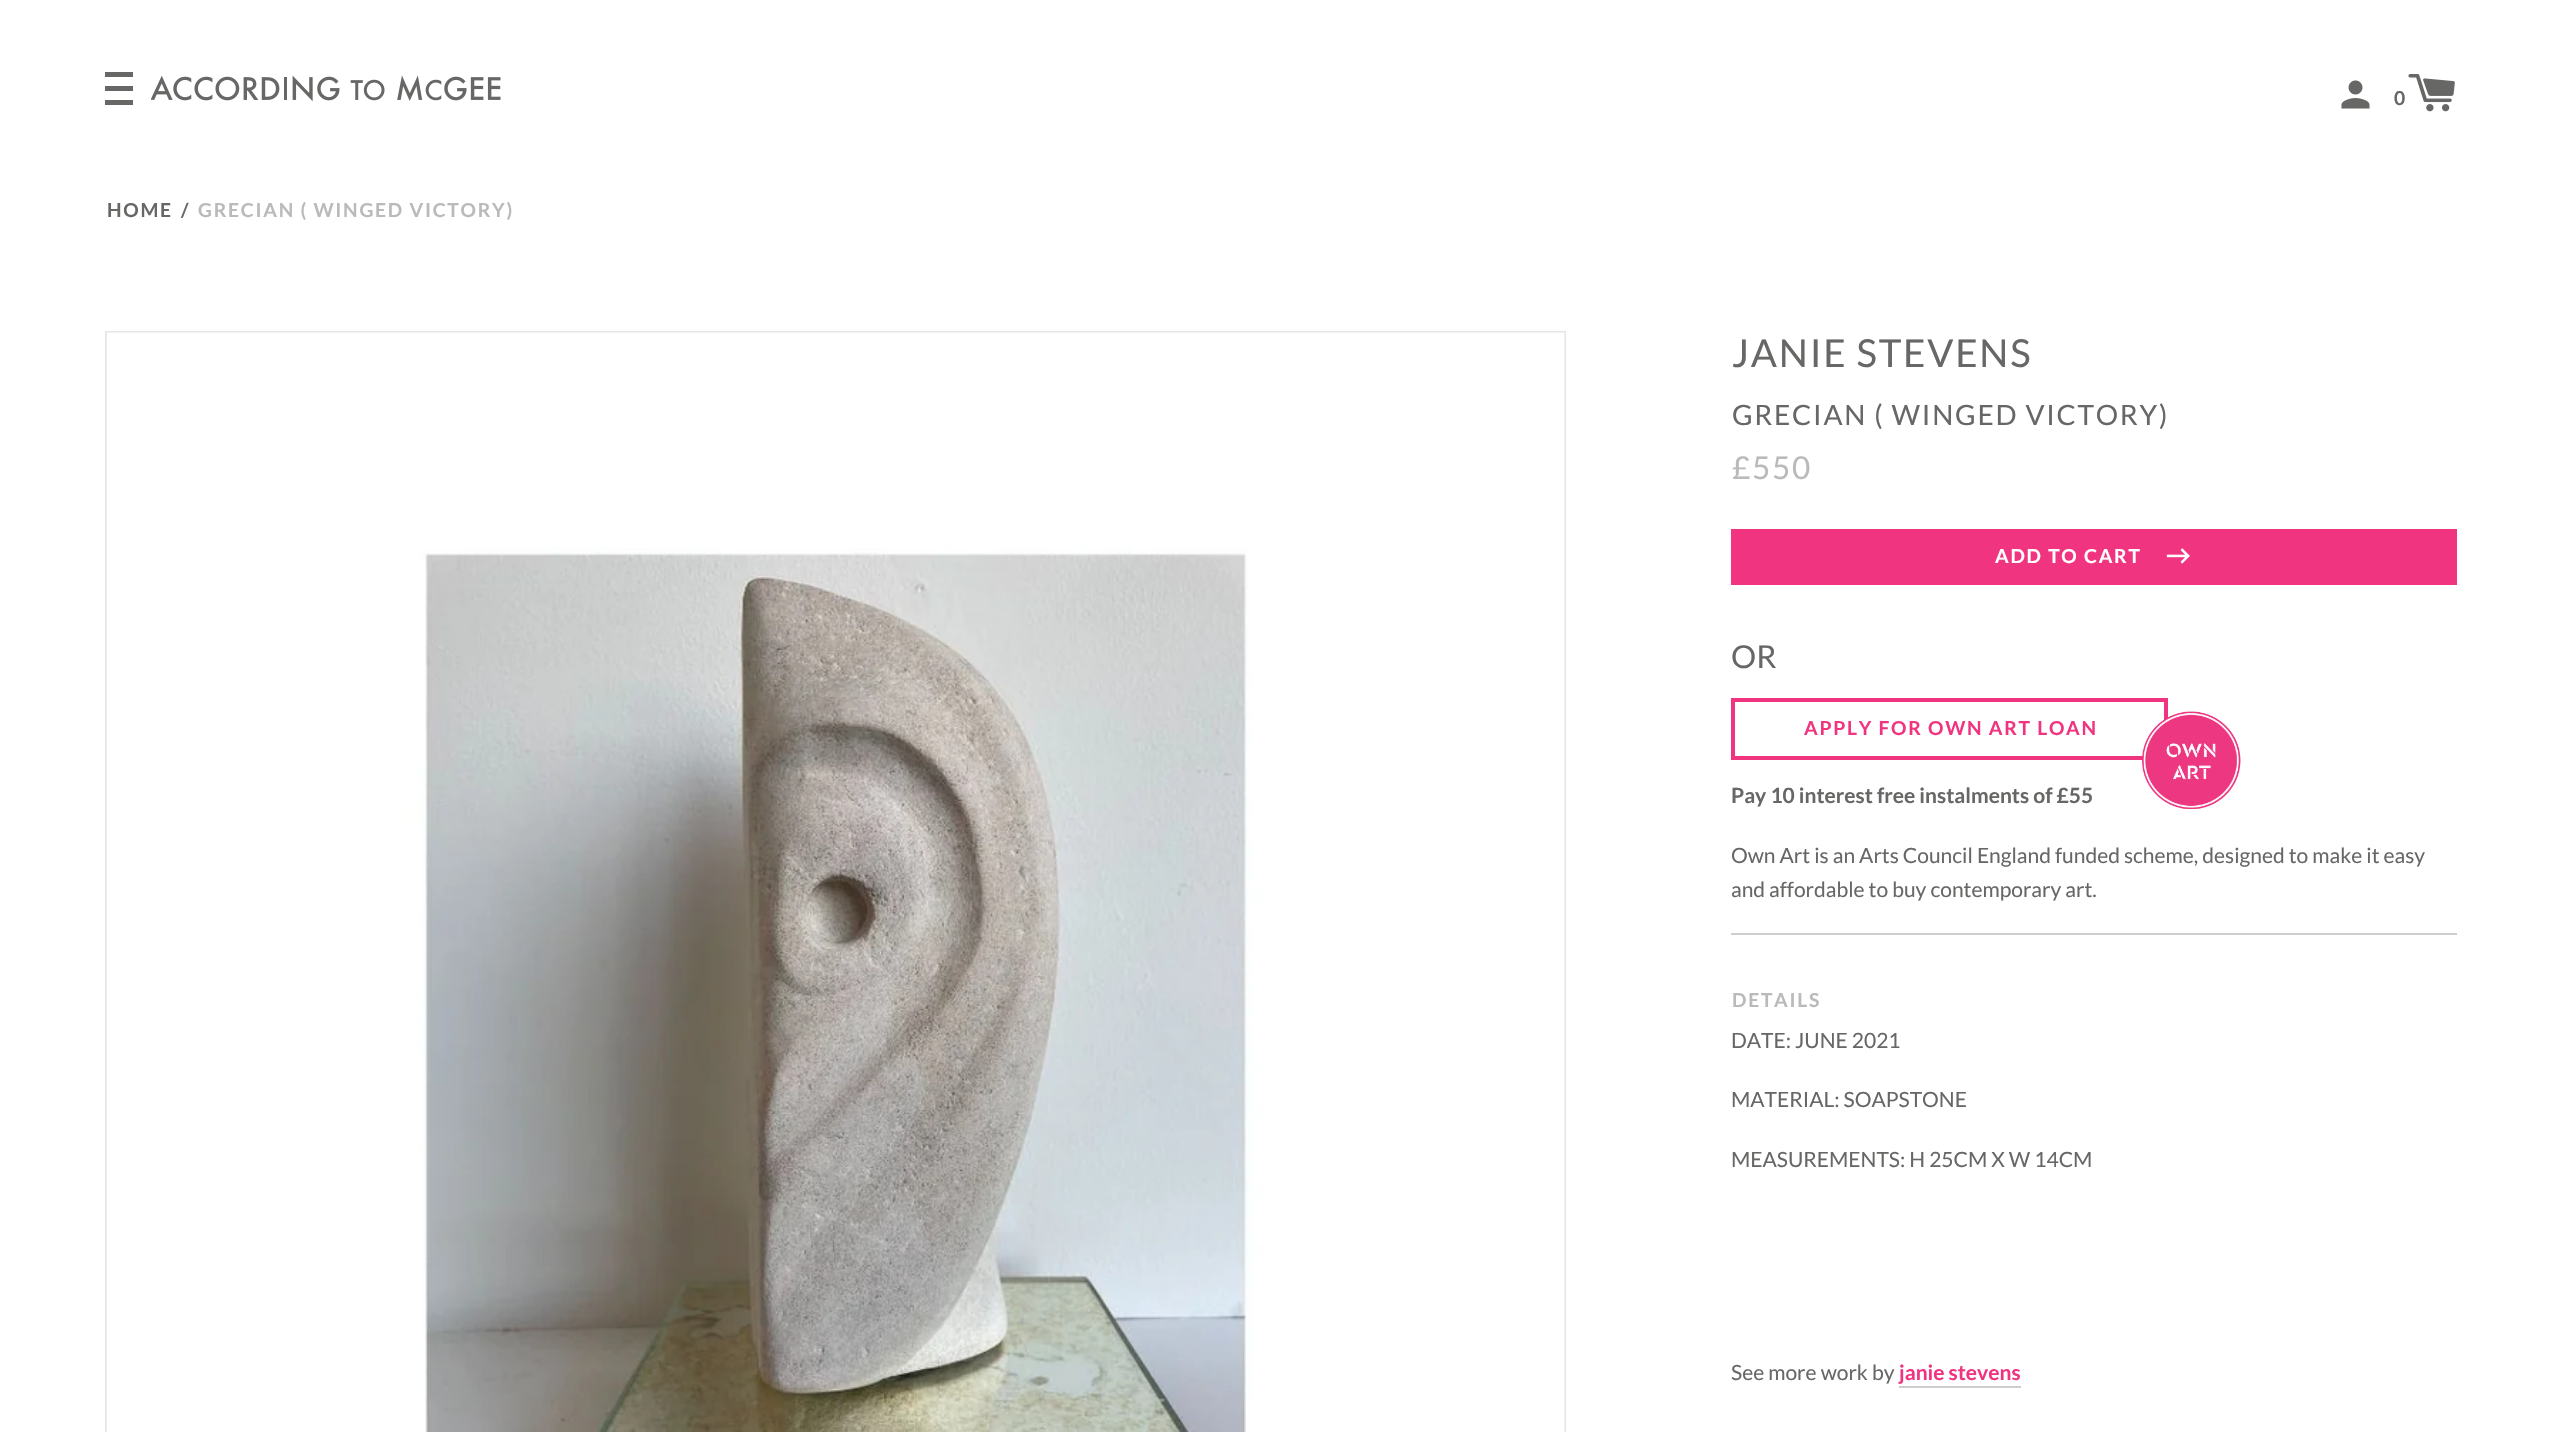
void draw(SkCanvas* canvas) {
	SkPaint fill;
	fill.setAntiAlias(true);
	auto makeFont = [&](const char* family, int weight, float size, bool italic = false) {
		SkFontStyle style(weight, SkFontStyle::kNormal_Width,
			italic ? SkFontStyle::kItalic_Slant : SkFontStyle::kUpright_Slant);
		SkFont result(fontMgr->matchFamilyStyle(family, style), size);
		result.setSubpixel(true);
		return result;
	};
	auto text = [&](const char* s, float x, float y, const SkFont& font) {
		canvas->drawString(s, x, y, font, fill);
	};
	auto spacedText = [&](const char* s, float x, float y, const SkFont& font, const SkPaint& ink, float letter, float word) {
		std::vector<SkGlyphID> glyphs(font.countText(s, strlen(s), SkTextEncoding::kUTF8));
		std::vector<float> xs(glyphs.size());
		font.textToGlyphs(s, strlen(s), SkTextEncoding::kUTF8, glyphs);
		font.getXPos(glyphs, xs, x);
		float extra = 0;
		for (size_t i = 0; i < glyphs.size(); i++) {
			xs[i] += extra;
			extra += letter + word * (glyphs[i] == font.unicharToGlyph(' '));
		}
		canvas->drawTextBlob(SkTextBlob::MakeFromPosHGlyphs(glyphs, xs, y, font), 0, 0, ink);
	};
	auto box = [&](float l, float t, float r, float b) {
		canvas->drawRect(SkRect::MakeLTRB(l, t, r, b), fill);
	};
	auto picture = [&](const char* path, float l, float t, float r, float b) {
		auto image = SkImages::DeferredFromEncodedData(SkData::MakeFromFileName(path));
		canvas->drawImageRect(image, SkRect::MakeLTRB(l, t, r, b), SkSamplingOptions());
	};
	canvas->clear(0xFFFFFFFF);
	fill.setColor(0xFF676766);
	box(105, 72, 133, 77);
	box(105, 86, 133, 91);
	box(105, 100, 133, 105);
	picture("image0.png", 151, 75, 501, 102);
	picture("image1.png", 2341, 80, 2370, 109);
	picture("image2.png", 2408, 74, 2455, 112);
	fill.setStyle(SkPaint::kStroke_Style);
	fill.setStrokeWidth(2);
	fill.setColor(0xFFE6E6E6);
	canvas->drawRect(SkRect::MakeLTRB(106, 332, 1565, 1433), fill);
	picture("image3.png", 106, 332, 1565, 1432);
	fill.setStyle(SkPaint::kFill_Style);
	fill.setColor(0xFFF13480);
	box(1731, 529, 2457, 585);
	picture("image4.png", 2166, 548, 2190, 564);
	fill.setStyle(SkPaint::kStroke_Style);
	fill.setStrokeWidth(4);
	canvas->drawRect(SkRect::MakeLTRB(1733, 700, 2166, 758), fill);
	picture("image5.png", 2142, 711, 2241, 809);
	fill.setStyle(SkPaint::kFill_Style);
	fill.setColor(0xFFCECECE);
	box(1731, 933, 2457, 935);
	box(1899, 1386, 2021, 1388);
	auto font1 = makeFont("Lato", 700, 19.25f);
	fill.setColor(0xFF676766);
	text("0", 2394, 105, font1);
	spacedText("HOME", 107, 217, font1, fill, 1.75f, 0);
	spacedText("/", 181, 217, font1, fill, 1.75f, 0);
	fill.setColor(0xFFBABABA);
	spacedText("GRECIAN ( WINGED VICTORY)", 198, 217, font1, fill, 1.75f, 0);
	auto font2 = makeFont("Lato", 400, 38.5f);
	fill.setColor(0xFF676766);
	spacedText("JANIE STEVENS", 1732, 367, font2, fill, 1.75f, 0);
	auto font3 = makeFont("Lato", 400, 28);
	spacedText("GRECIAN ( WINGED VICTORY)", 1732, 425, font3, fill, 1.75f, 0);
	auto font4 = makeFont("Lato", 400, 31.5f);
	fill.setColor(0xFFBABABA);
	spacedText("£550", 1732, 479, font4, fill, 1.75f, 0);
	fill.setColor(0xFFFFFFFF);
	spacedText("ADD TO CART", 1995, 563, font1, fill, 1.75f, 0);
	fill.setColor(0xFF676766);
	text("OR", 1731, 668, font4);
	fill.setColor(0xFFF13480);
	spacedText("APPLY FOR OWN ART LOAN", 1804, 735, font1, fill, 1.75f, 0);
	auto font5 = makeFont("Lato", 700, 21);
	fill.setColor(0xFF676766);
	text("Pay 10 interest free instalments of £55", 1731, 803, font5);
	auto font6 = makeFont("Lato", 400, 21);
	text("Own Art is an Arts Council England funded scheme, designed to make it easy", 1731, 863, font6);
	text("and affordable to buy contemporary art.", 1731, 897, font6);
	fill.setColor(0xFFBABABA);
	spacedText("DETAILS", 1732, 1007, font1, fill, 1.75f, 0);
	fill.setColor(0xFF676766);
	text("DATE: JUNE 2021", 1731, 1048, font6);
	text("MATERIAL: SOAPSTONE", 1731, 1107, font6);
	text("MEASUREMENTS: H 25CM X W 14CM", 1731, 1167, font6);
	text("See more work by", 1731, 1380, font6);
	fill.setColor(0xFFF13480);
	text("janie stevens", 1899, 1380, font5);
}
